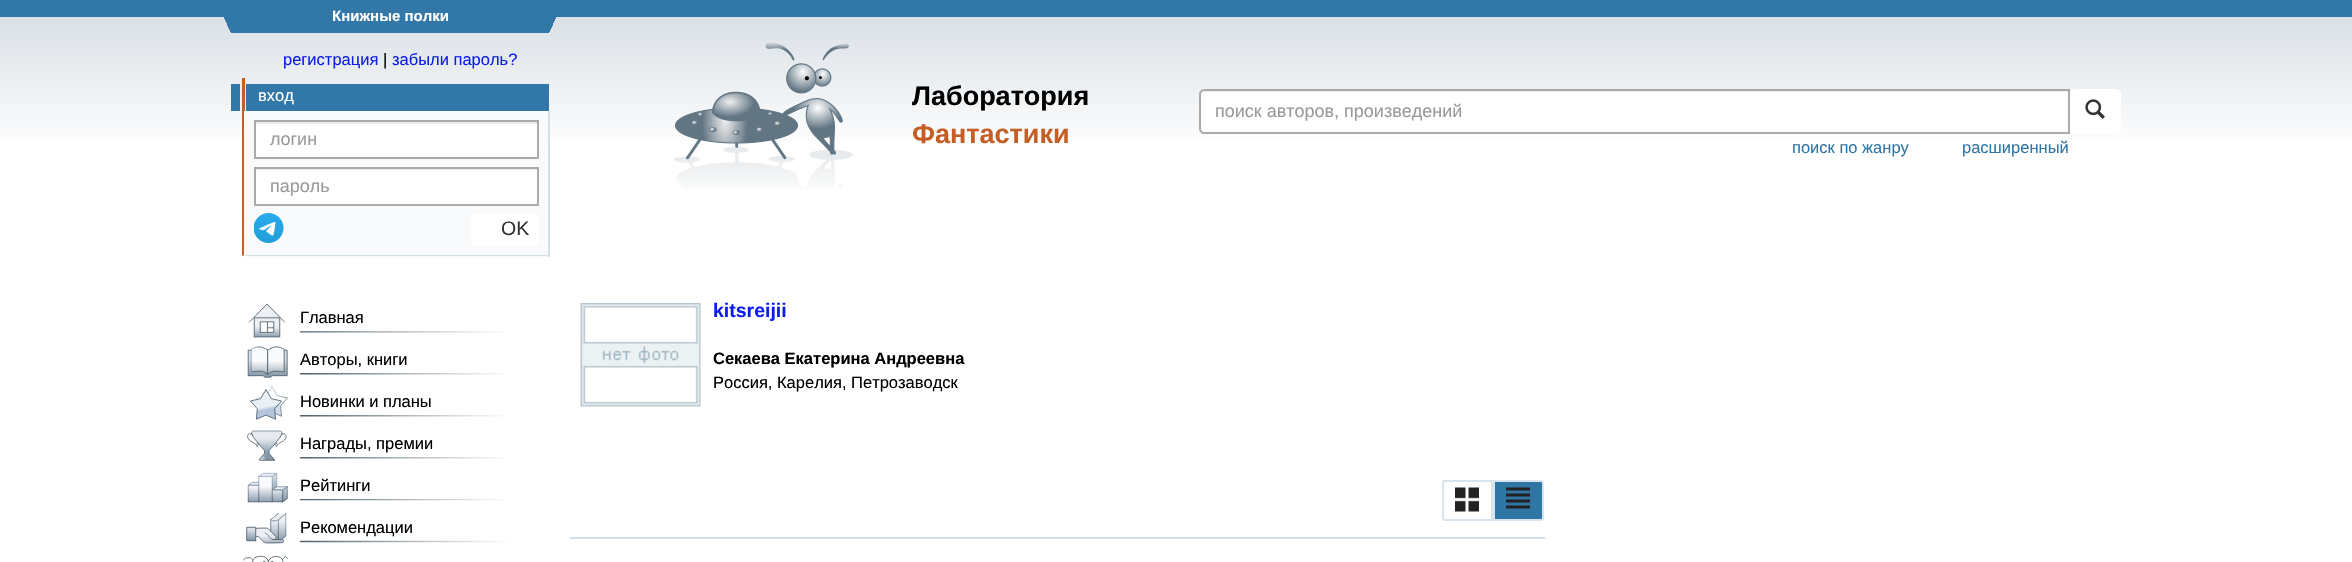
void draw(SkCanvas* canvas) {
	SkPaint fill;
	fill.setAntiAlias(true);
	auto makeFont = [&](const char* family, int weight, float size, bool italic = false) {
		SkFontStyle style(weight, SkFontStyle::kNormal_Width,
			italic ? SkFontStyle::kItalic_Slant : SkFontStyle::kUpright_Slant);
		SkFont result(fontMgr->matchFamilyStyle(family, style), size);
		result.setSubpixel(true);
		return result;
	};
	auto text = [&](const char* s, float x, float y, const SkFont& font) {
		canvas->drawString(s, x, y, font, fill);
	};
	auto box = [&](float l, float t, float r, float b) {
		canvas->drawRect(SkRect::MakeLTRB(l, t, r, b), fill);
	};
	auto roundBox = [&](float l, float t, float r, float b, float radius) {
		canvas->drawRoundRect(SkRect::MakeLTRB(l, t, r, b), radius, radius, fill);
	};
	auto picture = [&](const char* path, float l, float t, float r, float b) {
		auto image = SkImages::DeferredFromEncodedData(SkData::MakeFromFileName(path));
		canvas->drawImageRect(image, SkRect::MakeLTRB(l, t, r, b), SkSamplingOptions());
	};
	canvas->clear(0xFFFFFFFF);
	{
		const SkColor colors[] = {0xFFD6DDE3, 0xFFFFFFFF};
		const float stops[] = {0, 0.07f};
		const SkPoint ends[] = {{1176, 0}, {1176, 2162}};
		fill.setShader(SkGradientShader::MakeLinear(ends, colors, stops, 2, SkTileMode::kClamp));
		fill.setAlpha(255);
	}
	box(0, 17, 2352, 142);
	fill.setShader(nullptr);
	fill.setColor(0xFF3177A8);
	box(0, 0, 2352, 17);
	{
		const SkColor colors[] = {0x00000000, 0x003177A8, 0xFF3177A8, 0xFF3177A8};
		const float stops[] = {0, 0.5f, 0.5f, 1};
		const SkPoint ends[] = {{211, 22}, {236, 11}};
		fill.setShader(SkGradientShader::MakeLinear(ends, colors, stops, 4, SkTileMode::kClamp));
		fill.setAlpha(255);
	}
	box(224, 17, 231, 32);
	fill.setShader(nullptr);
	fill.setColor(0xFF3178A8);
	box(231, 17, 549, 33);
	{
		const SkColor colors[] = {0x00000000, 0x003177A8, 0xFF3177A8, 0xFF3177A8};
		const float stops[] = {0, 0.5f, 0.5f, 1};
		const SkPoint ends[] = {{569, 22}, {544, 11}};
		fill.setShader(SkGradientShader::MakeLinear(ends, colors, stops, 4, SkTileMode::kClamp));
		fill.setAlpha(255);
	}
	box(549, 17, 556, 32);
	fill.setShader(nullptr);
	fill.setColor(0xFF3178A8);
	box(231, 84, 240, 111);
	fill.setColor(0xFFC45E24);
	box(242, 78, 245, 111);
	fill.setColor(0xFF3178A8);
	box(246, 84, 549, 111);
	fill.setColor(0xFFF9FAFB);
	box(242, 111, 548, 257);
	fill.setColor(0xFFD2E0E8);
	box(548, 111, 550, 257);
	canvas->drawPath(SkPathBuilder().moveTo(549, 256).lineTo(242, 256).lineTo(244, 255).lineTo(548, 255).close().detach(), fill);
	fill.setColor(0xFFC45E24);
	canvas->drawPath(SkPathBuilder().moveTo(242, 256).lineTo(242, 111).lineTo(244, 111).lineTo(244, 255).close().detach(), fill);
	fill.setColor(0xFFFFFFFF);
	box(256, 124, 537, 157);
	fill.setColor(0xFFECECEC);
	box(255, 122, 537, 124);
	fill.setStyle(SkPaint::kStroke_Style);
	fill.setStrokeWidth(2);
	fill.setColor(0xFFAAAAAA);
	canvas->drawRect(SkRect::MakeLTRB(255, 121, 538, 158), fill);
	fill.setStyle(SkPaint::kFill_Style);
	fill.setColor(0xFFFFFFFF);
	box(256, 170, 537, 204);
	fill.setColor(0xFFECECEC);
	box(255, 169, 537, 170);
	fill.setStyle(SkPaint::kStroke_Style);
	fill.setColor(0xFFAAAAAA);
	canvas->drawRect(SkRect::MakeLTRB(255, 168, 538, 205), fill);
	picture("image0.png", 254, 213, 284, 243);
	fill.setStyle(SkPaint::kFill_Style);
	fill.setColor(0xFFFFFFFF);
	roundBox(471, 213, 539, 246, 5);
	picture("image1.png", 674, 42, 853, 190);
	roundBox(2069, 89, 2121, 134, 5);
	canvas->drawPath(SkPathBuilder().moveTo(1204, 89).lineTo(2070, 89).lineTo(2070, 134).lineTo(1204, 134).cubicTo(1201, 134, 1199, 132, 1199, 129).lineTo(1199, 94).cubicTo(1199, 91, 1201, 89, 1204, 89).close().detach(), fill);
	fill.setColor(0xFFECECEC);
	canvas->drawPath(SkPathBuilder().moveTo(1203, 92).lineTo(2068, 92).lineTo(2068, 132).lineTo(2069, 132).lineTo(2069, 90).lineTo(1203, 90).cubicTo(1201, 90, 1200, 92, 1200, 94).cubicTo(1200, 93, 1201, 92, 1203, 92).close().detach(), fill);
	fill.setStyle(SkPaint::kStroke_Style);
	fill.setColor(0xFFAAAAAA);
	canvas->drawPath(SkPathBuilder().moveTo(1204, 90).lineTo(2069, 90).lineTo(2069, 133).lineTo(1204, 133).cubicTo(1202, 133, 1200, 131, 1200, 129).lineTo(1200, 94).cubicTo(1200, 92, 1202, 90, 1204, 90).close().detach(), fill);
	picture("image2.png", 2085, 99, 2105, 119);
	picture("image3.png", 248, 304, 507, 338);
	picture("image4.png", 247, 346, 508, 378);
	picture("image5.png", 250, 386, 508, 420);
	picture("image6.png", 247, 430, 508, 461);
	picture("image7.png", 247, 472, 508, 503);
	picture("image8.png", 246, 512, 508, 544);
	picture("image9.png", 243, 555, 288, 562);
	picture("image10.png", 580, 303, 701, 407);
	fill.setStyle(SkPaint::kFill_Style);
	fill.setColor(0xFFD2E0E8);
	box(570, 537, 1545, 539);
	fill.setStyle(SkPaint::kStroke_Style);
	fill.setColor(0xFFD8E4EE);
	canvas->drawPath(SkPathBuilder().moveTo(1445, 481).lineTo(1492, 481).lineTo(1492, 520).lineTo(1445, 520).cubicTo(1444, 520, 1443, 519, 1443, 518).lineTo(1443, 483).cubicTo(1443, 482, 1444, 481, 1445, 481).close().detach(), fill);
	picture("image11.png", 1455, 487, 1479, 512);
	fill.setStyle(SkPaint::kFill_Style);
	fill.setColor(0xFF3076A5);
	canvas->drawPath(SkPathBuilder().moveTo(1494, 481).lineTo(1541, 481).cubicTo(1542, 481, 1543, 482, 1543, 483).lineTo(1543, 518).cubicTo(1543, 519, 1542, 520, 1541, 520).lineTo(1494, 520).close().detach(), fill);
	fill.setStyle(SkPaint::kStroke_Style);
	fill.setColor(0xFFD8E4EE);
	canvas->drawPath(SkPathBuilder().moveTo(1494, 481).lineTo(1541, 481).cubicTo(1542, 481, 1543, 482, 1543, 483).lineTo(1543, 518).cubicTo(1543, 519, 1542, 520, 1541, 520).lineTo(1494, 520).close().detach(), fill);
	picture("image12.png", 1506, 487, 1530, 509);
	auto font1 = makeFont("Liberation Sans", 700, 15);
	fill.setStyle(SkPaint::kFill_Style);
	fill.setColor(0xFFFFFFFF);
	text("Книжные полки", 332, 21, font1);
	auto font2 = makeFont("Liberation Sans", 400, 16.5f);
	fill.setColor(0xFF0C1DE9);
	text("регистрация", 283, 65, font2);
	fill.setColor(0xFF000000);
	text("|", 383, 65, font2);
	fill.setColor(0xFF0C1DE9);
	text("забыли пароль?", 392, 65, font2);
	fill.setColor(0xFFFFFFFF);
	text("вход", 258, 101, font2);
	auto font3 = makeFont("Liberation Sans", 400, 18);
	fill.setColor(0xFF999999);
	text("логин", 270, 145, font3);
	text("пароль", 270, 192, font3);
	auto font4 = makeFont("Liberation Sans", 400, 19.5f);
	fill.setColor(0xFF333333);
	text("OK", 501, 235, font4);
	auto font5 = makeFont("Liberation Sans", 700, 27);
	fill.setColor(0xFF000000);
	text("Лаборатория", 912, 105, font5);
	fill.setColor(0xFFC45E24);
	text("Фантастики", 912, 143, font5);
	fill.setColor(0xFF999999);
	text("поиск авторов, произведений", 1215, 117, font3);
	fill.setColor(0xFF3076A5);
	text("поиск по жанру", 1792, 153, font2);
	text("расширенный", 1962, 153, font2);
	fill.setColor(0xFF000000);
	text("Главная", 300, 323, font2);
	text("Авторы, книги", 300, 365, font2);
	text("Новинки и планы", 300, 407, font2);
	text("Награды, премии", 300, 449, font2);
	text("Рейтинги", 300, 491, font2);
	text("Рекомендации", 300, 533, font2);
	auto font6 = makeFont("Liberation Sans", 700, 19.5f);
	fill.setColor(0xFF0C1DE9);
	text("kitsreijii", 713, 317, font6);
	auto font7 = makeFont("Liberation Sans", 700, 16.5f);
	fill.setColor(0xFF000000);
	text("Секаева Екатерина Андреевна", 713, 364, font7);
	text("Россия, Карелия, Петрозаводск", 713, 388, font2);
}
